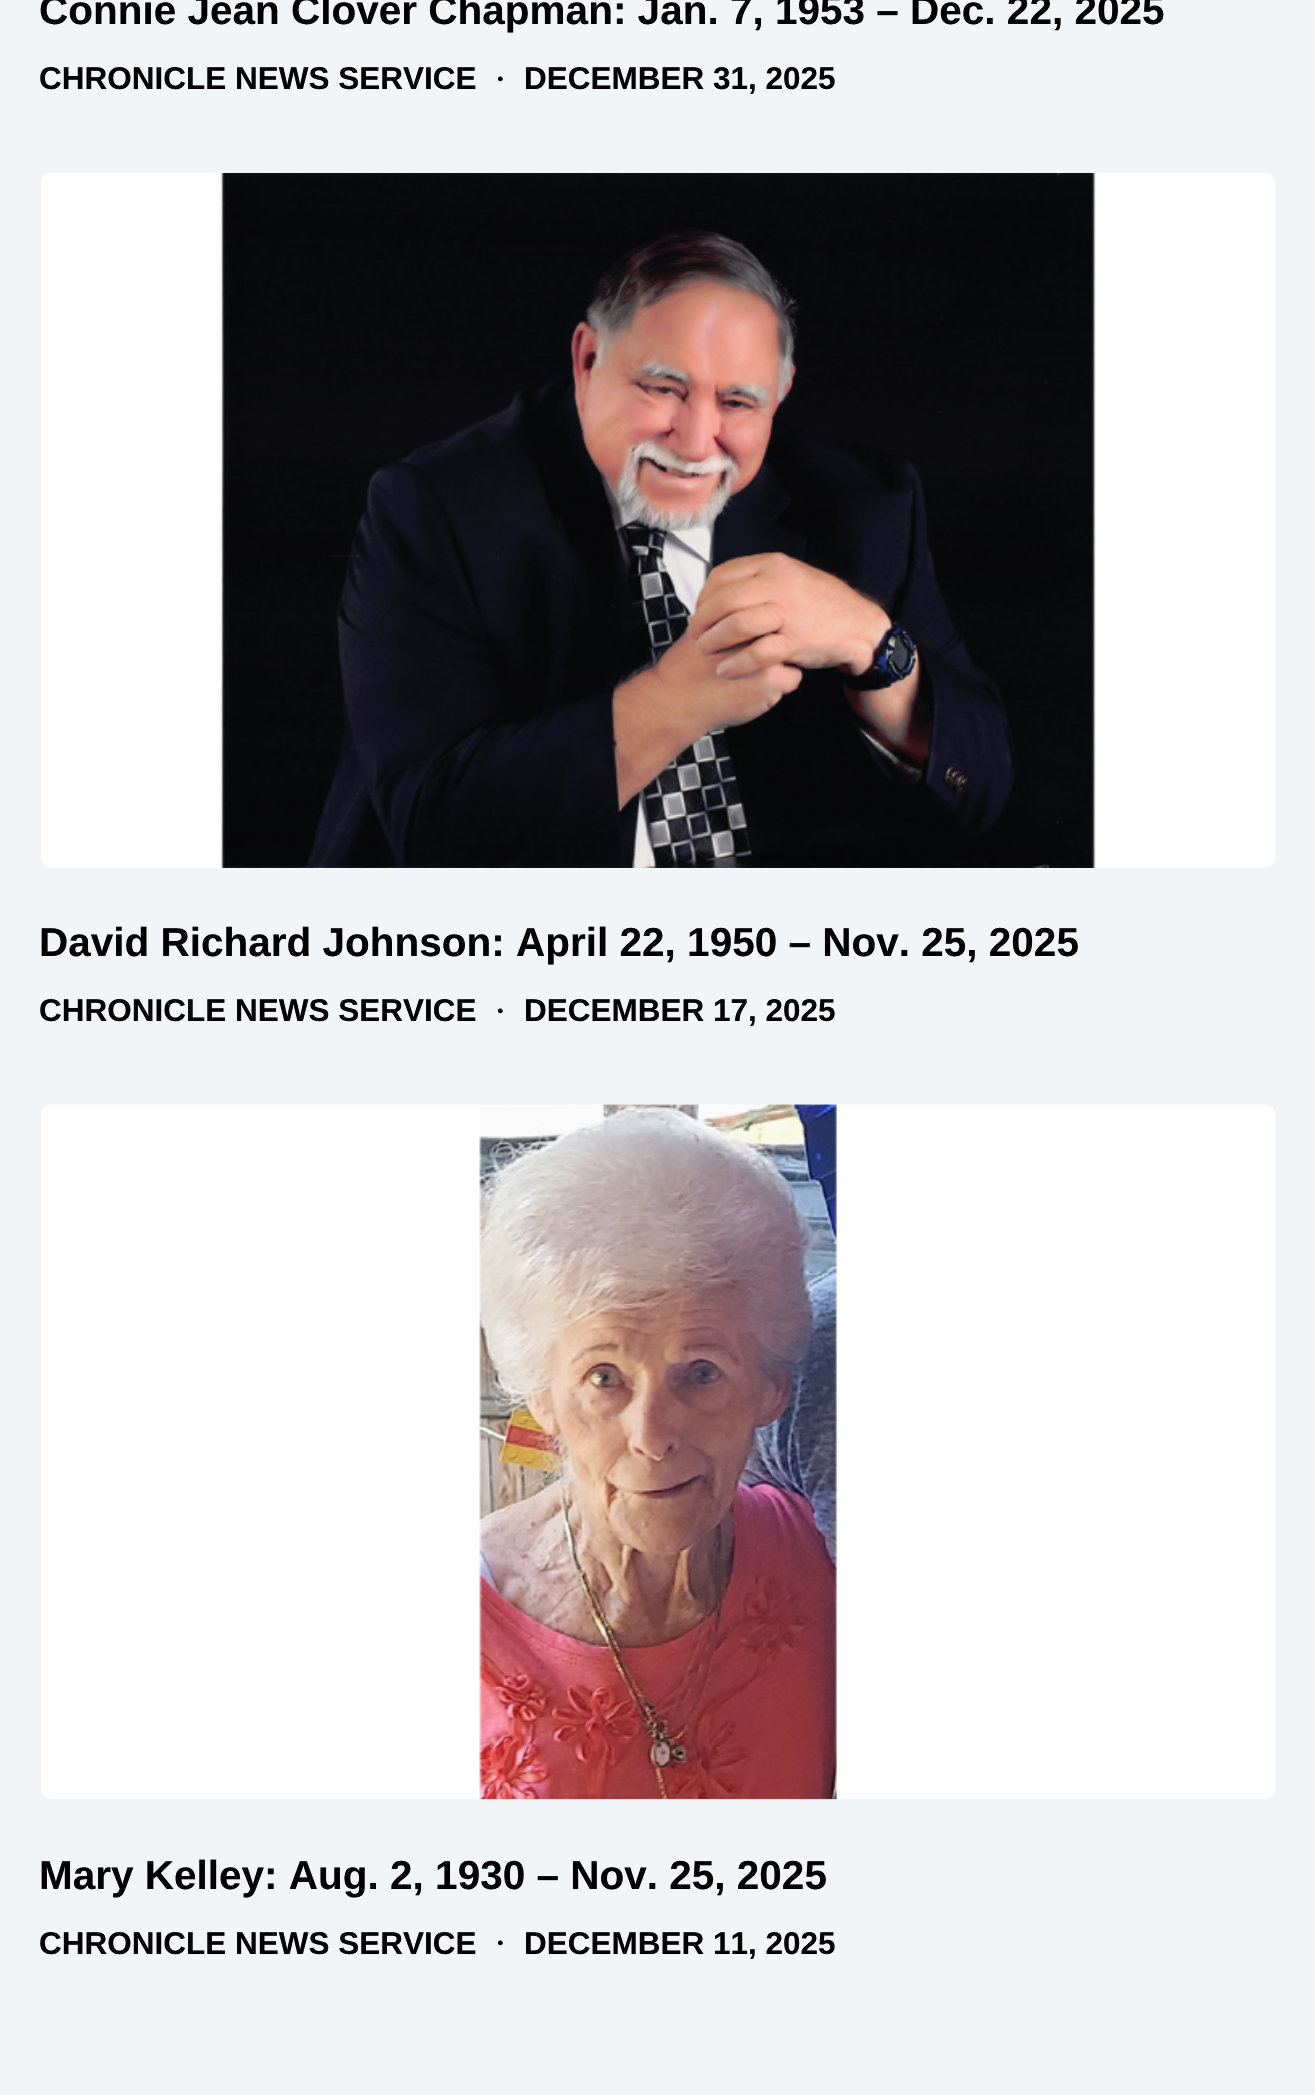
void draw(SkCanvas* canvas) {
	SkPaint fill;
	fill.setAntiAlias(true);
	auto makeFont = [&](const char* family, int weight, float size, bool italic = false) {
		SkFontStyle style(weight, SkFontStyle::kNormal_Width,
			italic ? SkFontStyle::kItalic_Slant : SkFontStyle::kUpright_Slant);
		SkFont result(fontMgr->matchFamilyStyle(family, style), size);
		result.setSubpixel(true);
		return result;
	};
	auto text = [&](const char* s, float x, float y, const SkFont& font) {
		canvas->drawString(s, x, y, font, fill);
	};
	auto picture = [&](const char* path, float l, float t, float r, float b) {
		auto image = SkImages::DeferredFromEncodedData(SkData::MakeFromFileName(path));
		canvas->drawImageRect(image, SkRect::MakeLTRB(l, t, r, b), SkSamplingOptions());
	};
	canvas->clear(0xFFF2F5F7);
	picture("image0.png", 41, 173, 1276, 868);
	picture("image1.png", 41, 1104, 1276, 1800);
	auto font1 = makeFont("Liberation Sans", 700, 40.5f);
	fill.setColor(0xFF000000);
	text("Connie Jean Clover Chapman: Jan. 7, 1953 – Dec. 22, 2025", 39, 24, font1);
	auto font2 = makeFont("Liberation Sans", 700, 31.5f);
	text("CHRONICLE NEWS SERVICE", 39, 89, font2);
	auto font3 = makeFont("Liberation Sans", 700, 11);
	text("●", 497, 82, font3);
	text("DECEMBER 31, 2025", 524, 89, font2);
	text("David Richard Johnson: April 22, 1950 – Nov. 25, 2025", 39, 956, font1);
	text("CHRONICLE NEWS SERVICE", 39, 1021, font2);
	text("●", 497, 1014, font3);
	text("DECEMBER 17, 2025", 524, 1021, font2);
	text("Mary Kelley: Aug. 2, 1930 – Nov. 25, 2025", 39, 1889, font1);
	text("CHRONICLE NEWS SERVICE", 39, 1954, font2);
	text("●", 497, 1946, font3);
	text("DECEMBER 11, 2025", 524, 1954, font2);
}
